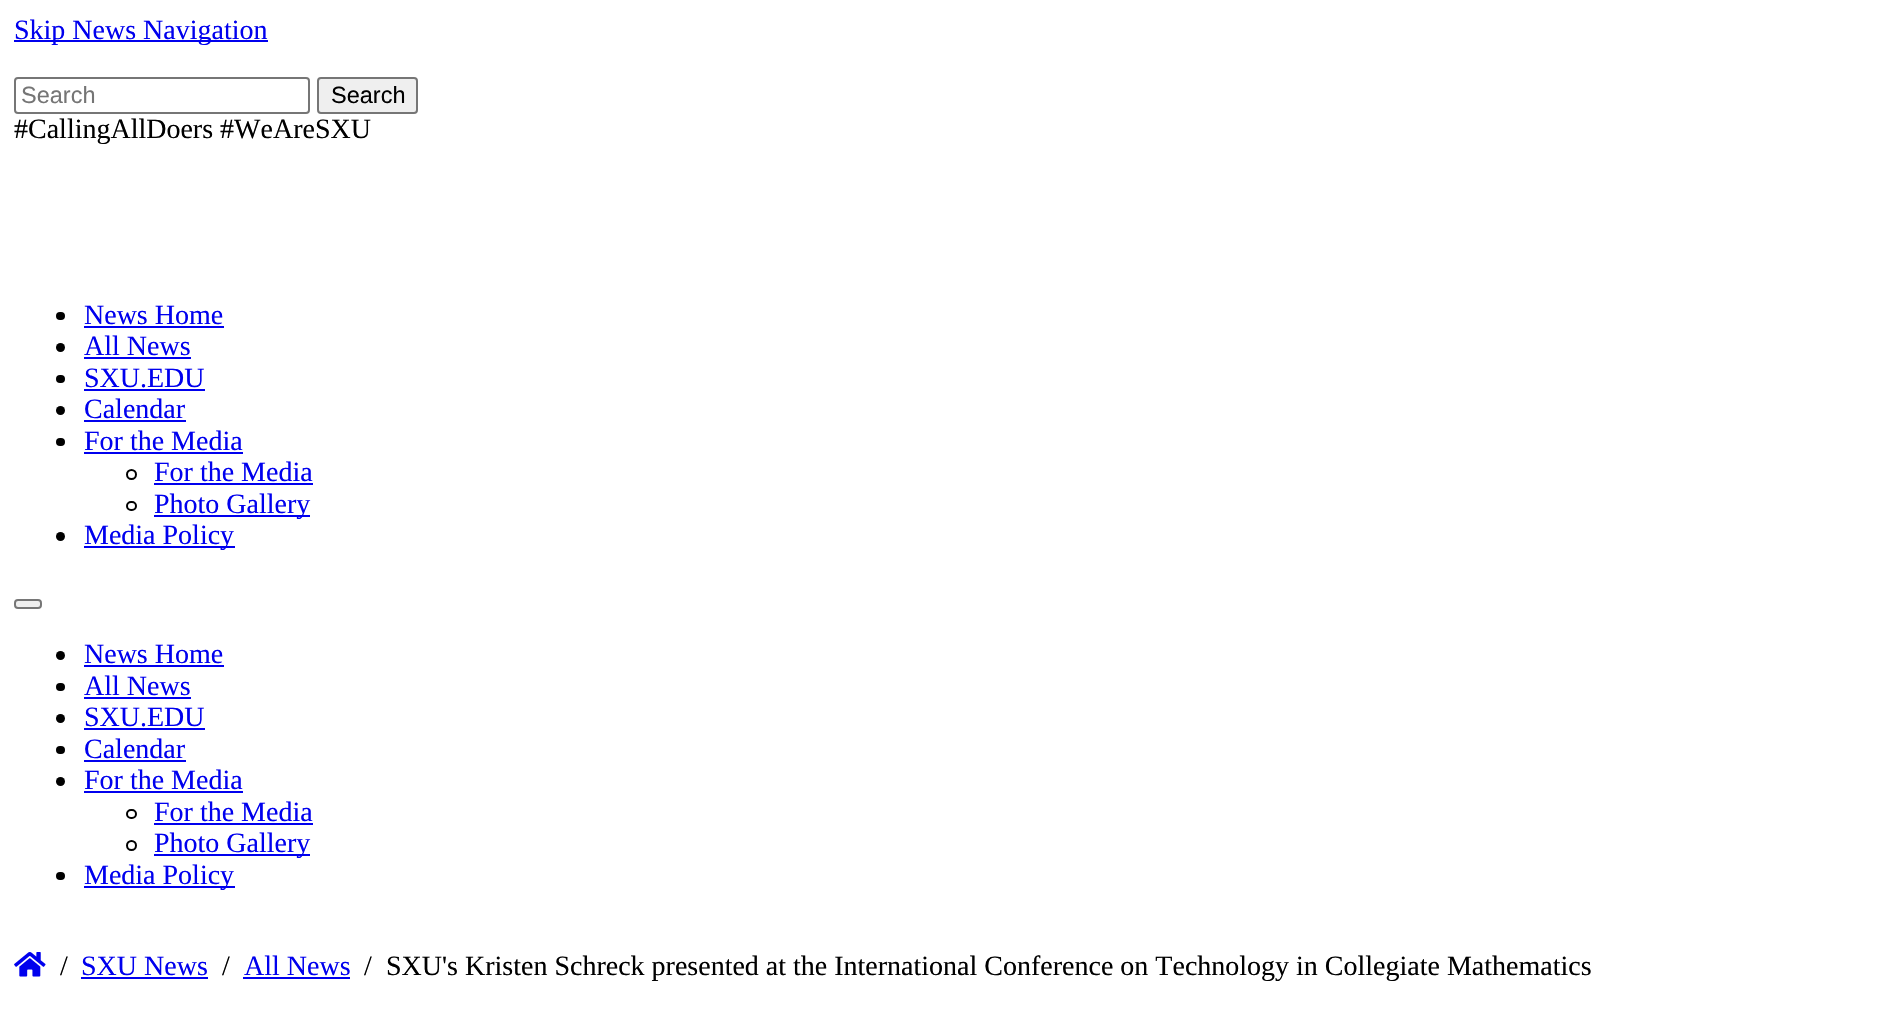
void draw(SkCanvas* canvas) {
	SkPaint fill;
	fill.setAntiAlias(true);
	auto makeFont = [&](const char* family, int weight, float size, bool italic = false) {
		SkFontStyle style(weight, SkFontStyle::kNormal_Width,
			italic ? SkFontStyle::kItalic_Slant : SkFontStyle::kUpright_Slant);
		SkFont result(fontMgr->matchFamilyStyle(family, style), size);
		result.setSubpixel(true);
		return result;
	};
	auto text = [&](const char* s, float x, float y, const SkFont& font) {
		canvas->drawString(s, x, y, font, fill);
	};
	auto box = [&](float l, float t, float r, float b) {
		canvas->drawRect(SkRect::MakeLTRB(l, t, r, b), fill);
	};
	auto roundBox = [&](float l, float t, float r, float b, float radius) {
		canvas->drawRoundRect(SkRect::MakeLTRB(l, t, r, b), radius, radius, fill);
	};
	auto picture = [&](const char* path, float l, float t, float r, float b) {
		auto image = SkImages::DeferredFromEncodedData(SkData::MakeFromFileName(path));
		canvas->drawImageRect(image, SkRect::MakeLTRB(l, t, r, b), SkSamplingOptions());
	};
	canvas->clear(0xFFFFFFFF);
	fill.setColor(0xFF0000EE);
	box(14, 40, 268, 42);
	fill.setStyle(SkPaint::kStroke_Style);
	fill.setStrokeWidth(2);
	fill.setColor(0xFF767676);
	canvas->drawRoundRect(SkRect::MakeLTRB(15, 78, 309, 113), 3, 3, fill);
	fill.setStyle(SkPaint::kFill_Style);
	fill.setColor(0xFFEFEFEF);
	canvas->drawRoundRect(SkRect::MakeLTRB(318, 78, 417, 113), 3, 3, fill);
	fill.setStyle(SkPaint::kStroke_Style);
	fill.setColor(0xFF767676);
	canvas->drawRoundRect(SkRect::MakeLTRB(318, 78, 417, 113), 3, 3, fill);
	fill.setStyle(SkPaint::kFill_Style);
	fill.setColor(0xFF000000);
	roundBox(56, 312, 65, 320, 4);
	fill.setColor(0xFF0000EE);
	box(84, 326, 224, 328);
	fill.setColor(0xFF000000);
	canvas->drawCircle(60.5f, 347.5f, 4.5f, fill);
	fill.setColor(0xFF0000EE);
	box(84, 357, 191, 359);
	fill.setColor(0xFF000000);
	roundBox(56, 375, 65, 383, 4);
	fill.setColor(0xFF0000EE);
	box(84, 389, 205, 391);
	fill.setColor(0xFF000000);
	canvas->drawCircle(60.5f, 410.5f, 4.5f, fill);
	fill.setColor(0xFF0000EE);
	box(84, 420, 186, 422);
	fill.setColor(0xFF000000);
	roundBox(56, 438, 65, 446, 4);
	fill.setColor(0xFF0000EE);
	box(84, 452, 243, 454);
	fill.setStyle(SkPaint::kStroke_Style);
	fill.setColor(0xFF000000);
	canvas->drawCircle(131.5f, 474.5f, 4.5f, fill);
	fill.setStyle(SkPaint::kFill_Style);
	fill.setColor(0xFF0000EE);
	box(154, 483, 313, 485);
	fill.setStyle(SkPaint::kStroke_Style);
	fill.setColor(0xFF000000);
	canvas->drawRoundRect(SkRect::MakeLTRB(127, 502, 136, 510), 4, 4, fill);
	fill.setStyle(SkPaint::kFill_Style);
	fill.setColor(0xFF0000EE);
	box(154, 515, 310, 517);
	fill.setColor(0xFF000000);
	canvas->drawCircle(60.5f, 536.5f, 4.5f, fill);
	fill.setColor(0xFF0000EE);
	box(84, 546, 235, 548);
	fill.setColor(0xFFEFEFEF);
	canvas->drawRoundRect(SkRect::MakeLTRB(15, 600, 41, 608), 3, 3, fill);
	fill.setStyle(SkPaint::kStroke_Style);
	fill.setColor(0xFF767676);
	canvas->drawRoundRect(SkRect::MakeLTRB(15, 600, 41, 608), 3, 3, fill);
	fill.setStyle(SkPaint::kFill_Style);
	fill.setColor(0xFF000000);
	canvas->drawCircle(60.5f, 655.5f, 4.5f, fill);
	fill.setColor(0xFF0000EE);
	box(84, 665, 224, 667);
	fill.setColor(0xFF000000);
	roundBox(56, 683, 65, 691, 4);
	fill.setColor(0xFF0000EE);
	box(84, 697, 191, 699);
	fill.setColor(0xFF000000);
	canvas->drawCircle(60.5f, 718.5f, 4.5f, fill);
	fill.setColor(0xFF0000EE);
	box(84, 728, 205, 730);
	fill.setColor(0xFF000000);
	roundBox(56, 746, 65, 754, 4);
	fill.setColor(0xFF0000EE);
	box(84, 760, 186, 762);
	fill.setColor(0xFF000000);
	canvas->drawCircle(60.5f, 781.5f, 4.5f, fill);
	fill.setColor(0xFF0000EE);
	box(84, 791, 243, 793);
	fill.setStyle(SkPaint::kStroke_Style);
	fill.setColor(0xFF000000);
	canvas->drawRoundRect(SkRect::MakeLTRB(127, 810, 136, 818), 4, 4, fill);
	fill.setStyle(SkPaint::kFill_Style);
	fill.setColor(0xFF0000EE);
	box(154, 823, 313, 825);
	fill.setStyle(SkPaint::kStroke_Style);
	fill.setColor(0xFF000000);
	canvas->drawCircle(131.5f, 845.5f, 4.5f, fill);
	fill.setStyle(SkPaint::kFill_Style);
	fill.setColor(0xFF0000EE);
	box(154, 854, 310, 856);
	fill.setColor(0xFF000000);
	roundBox(56, 872, 65, 880, 4);
	fill.setColor(0xFF0000EE);
	box(84, 886, 235, 888);
	picture("image0.png", 14, 952, 46, 977);
	box(81, 977, 208, 979);
	box(243, 977, 350, 979);
	auto font1 = makeFont("Liberation Serif", 400, 28);
	text("Skip News Navigation", 14, 39, font1);
	auto font2 = makeFont("Liberation Sans", 400, 23.5f);
	fill.setColor(0xFF757575);
	text("Search", 21, 103, font2);
	fill.setColor(0xFF000000);
	text("Search", 331, 103, font2);
	text("#CallingAllDoers #WeAreSXU", 14, 138, font1);
	fill.setColor(0xFF0000EE);
	text("News Home", 84, 324, font1);
	text("All News", 84, 355, font1);
	text("SXU.EDU", 84, 387, font1);
	text("Calendar", 84, 418, font1);
	text("For the Media", 84, 450, font1);
	text("For the Media", 154, 481, font1);
	text("Photo Gallery", 154, 513, font1);
	text("Media Policy", 84, 544, font1);
	text("News Home", 84, 663, font1);
	text("All News", 84, 695, font1);
	text("SXU.EDU", 84, 726, font1);
	text("Calendar", 84, 758, font1);
	text("For the Media", 84, 789, font1);
	text("For the Media", 154, 821, font1);
	text("Photo Gallery", 154, 852, font1);
	text("Media Policy", 84, 884, font1);
	fill.setColor(0xFF000000);
	text("/", 60, 975, font1);
	fill.setColor(0xFF0000EE);
	text("SXU News", 81, 975, font1);
	fill.setColor(0xFF000000);
	text("/", 222, 975, font1);
	fill.setColor(0xFF0000EE);
	text("All News", 244, 975, font1);
	fill.setColor(0xFF000000);
	text("/", 364, 975, font1);
	text("SXU's Kristen Schreck presented at the International Conference on Technology in Collegiate Mathematics", 386, 975, font1);
}
